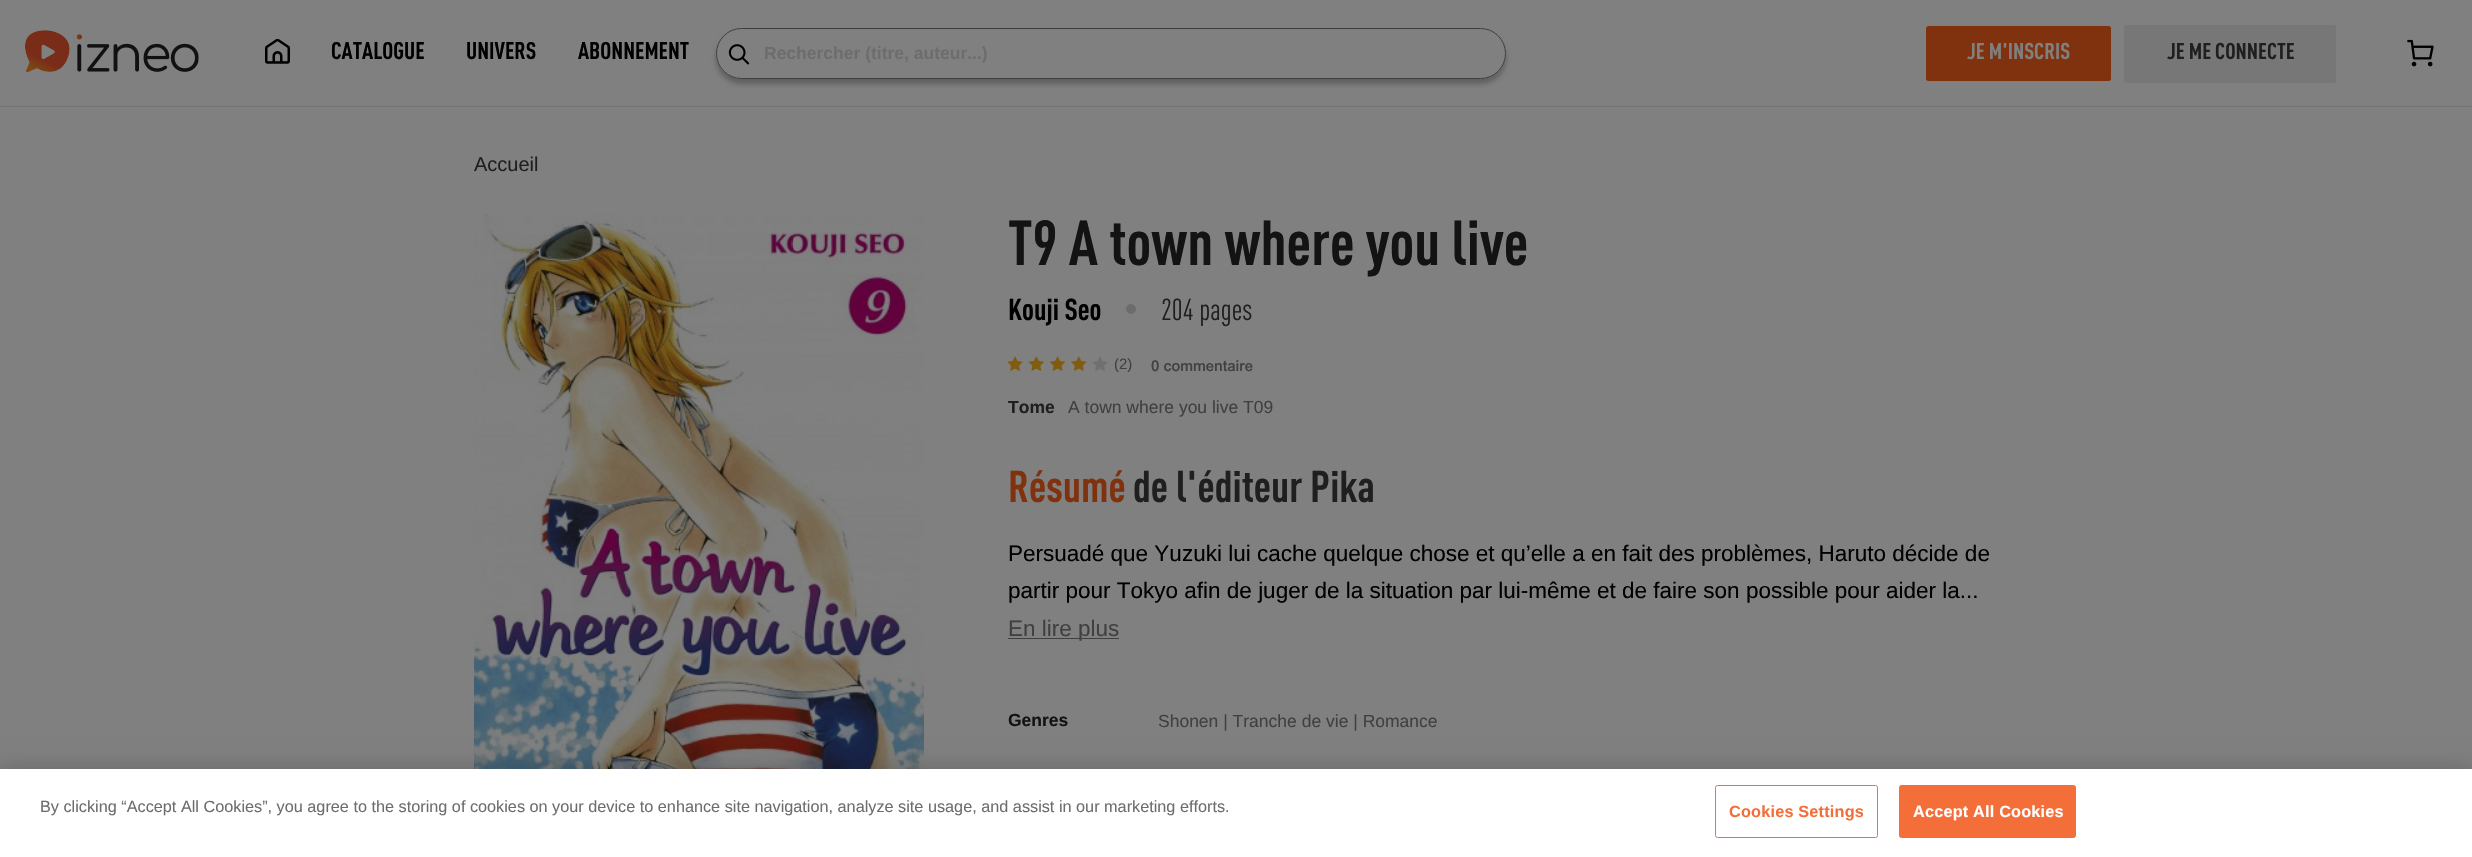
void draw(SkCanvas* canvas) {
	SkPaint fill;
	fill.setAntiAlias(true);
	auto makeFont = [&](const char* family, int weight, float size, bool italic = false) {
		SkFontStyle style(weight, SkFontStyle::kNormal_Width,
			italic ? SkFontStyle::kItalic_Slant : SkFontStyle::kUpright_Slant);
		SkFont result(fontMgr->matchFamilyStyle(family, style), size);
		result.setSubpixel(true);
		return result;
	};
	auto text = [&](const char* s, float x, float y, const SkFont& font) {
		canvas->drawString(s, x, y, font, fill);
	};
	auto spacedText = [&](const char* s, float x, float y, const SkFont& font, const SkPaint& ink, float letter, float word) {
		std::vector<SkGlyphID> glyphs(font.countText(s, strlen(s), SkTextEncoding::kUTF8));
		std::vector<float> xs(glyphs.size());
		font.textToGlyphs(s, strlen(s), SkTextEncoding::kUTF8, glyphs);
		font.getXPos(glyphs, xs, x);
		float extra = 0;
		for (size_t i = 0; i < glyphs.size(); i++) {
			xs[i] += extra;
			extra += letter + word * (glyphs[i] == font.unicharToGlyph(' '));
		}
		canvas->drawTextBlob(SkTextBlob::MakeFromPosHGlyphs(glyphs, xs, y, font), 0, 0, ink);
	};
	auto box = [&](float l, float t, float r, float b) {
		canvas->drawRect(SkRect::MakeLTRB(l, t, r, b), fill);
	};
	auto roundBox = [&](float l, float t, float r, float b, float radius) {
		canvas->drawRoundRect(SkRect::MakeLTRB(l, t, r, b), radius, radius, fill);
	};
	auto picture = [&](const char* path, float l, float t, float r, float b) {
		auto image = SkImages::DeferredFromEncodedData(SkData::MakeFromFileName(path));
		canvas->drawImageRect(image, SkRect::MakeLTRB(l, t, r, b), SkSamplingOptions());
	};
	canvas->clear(0xFF808080);
	fill.setColor(0xFF737373);
	box(0, 106, 2472, 107);
	picture("image0.png", 25, 30, 199, 73);
	picture("image1.png", 265, 39, 290, 64);
	canvas->save();
	canvas->clipPath(SkPathBuilder(SkPathFillType::kEvenOdd).moveTo(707, 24).lineTo(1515, 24).lineTo(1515, 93).lineTo(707, 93).close().moveTo(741.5f, 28).lineTo(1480.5f, 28).cubicTo(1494.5f, 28, 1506, 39.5f, 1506, 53.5f).cubicTo(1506, 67.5f, 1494.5f, 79, 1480.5f, 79).lineTo(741.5f, 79).cubicTo(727.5f, 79, 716, 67.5f, 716, 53.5f).cubicTo(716, 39.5f, 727.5f, 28, 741.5f, 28).close().detach(), true);
	fill.setColor(0x40000000);
	fill.setMaskFilter(SkMaskFilter::MakeBlur(kNormal_SkBlurStyle, 2.5f));
	canvas->drawRoundRect(SkRect::MakeLTRB(716, 33, 1506, 84), 25.5f, 25.5f, fill);
	fill.setMaskFilter(nullptr);
	canvas->restore();
	fill.setStyle(SkPaint::kStroke_Style);
	fill.setStrokeWidth(1);
	fill.setColor(0xFF3E3E3E);
	canvas->drawRoundRect(SkRect::MakeLTRB(716.5f, 28.5f, 1505.5f, 78.5f), 25, 25, fill);
	picture("image2.png", 728, 44, 750, 65);
	fill.setStyle(SkPaint::kFill_Style);
	fill.setColor(0xFF80320F);
	roundBox(1926, 26, 2111, 81, 2.5f);
	fill.setColor(0xFF777777);
	roundBox(2124, 25, 2336, 83, 2.5f);
	picture("image3.png", 2407, 39, 2434, 67);
	picture("image4.png", 474, 214, 924, 769);
	fill.setColor(0xFF6C6C6C);
	canvas->drawCircle(1131, 309, 5, fill);
	picture("image5.png", 1007, 356, 1023, 371);
	picture("image6.png", 1028, 356, 1044, 371);
	picture("image7.png", 1050, 356, 1065, 371);
	picture("image8.png", 1071, 356, 1087, 371);
	picture("image9.png", 1092, 356, 1108, 371);
	fill.setColor(0xFF404040);
	box(1008, 638, 1119, 639);
	fill.setColor(0x33000000);
	fill.setMaskFilter(SkMaskFilter::MakeBlur(kNormal_SkBlurStyle, 11));
	canvas->drawRect(SkRect::MakeLTRB(0, 769, 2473, 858), fill);
	fill.setMaskFilter(nullptr);
	fill.setColor(0xFFFFFFFF);
	box(0, 769, 2472, 857);
	fill.setStyle(SkPaint::kStroke_Style);
	fill.setColor(0xFFF36E39);
	canvas->drawRoundRect(SkRect::MakeLTRB(1715.5f, 785.5f, 1877.5f, 837.5f), 2, 2, fill);
	fill.setStyle(SkPaint::kFill_Style);
	canvas->drawRoundRect(SkRect::MakeLTRB(1899.5f, 785.5f, 2075.5f, 837.5f), 2, 2, fill);
	fill.setStyle(SkPaint::kStroke_Style);
	canvas->drawRoundRect(SkRect::MakeLTRB(1899.5f, 785.5f, 2075.5f, 837.5f), 2, 2, fill);
	auto font1 = makeFont("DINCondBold", 700, 23.75f);
	fill.setStyle(SkPaint::kFill_Style);
	fill.setColor(0xFF000000);
	text("CATALOGUE", 331, 59, font1);
	text("UNIVERS", 466, 59, font1);
	text("ABONNEMENT", 578, 59, font1);
	auto font2 = makeFont("Liberation Sans", 700, 17.5f);
	fill.setColor(0xFF6D6D6D);
	text("Rechercher (titre, auteur...)", 764, 59, font2);
	auto font3 = makeFont("DINCondBold", 700, 22.5f);
	fill.setColor(0xFF808080);
	text("JE M'INSCRIS", 1967, 59, font3);
	fill.setColor(0xFF1F1F1F);
	text("JE ME CONNECTE", 2167, 59, font3);
	auto font4 = makeFont("Liberation Sans", 400, 20);
	text("Accueil", 474, 171, font4);
	auto font5 = makeFont("DINCondBold", 700, 62.5f);
	fill.setColor(0xFF141313);
	text("T9 A town where you live", 1008, 265, font5);
	auto font6 = makeFont("DINCondBold", 700, 30);
	fill.setColor(0xFF000000);
	text("Kouji Seo", 1008, 320, font6);
	auto font7 = makeFont("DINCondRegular", 400, 30);
	fill.setColor(0xFF1F1F1F);
	text("204 pages", 1161, 320, font7);
	auto font8 = makeFont("Liberation Sans", 400, 15);
	fill.setColor(0xFF404040);
	text("(2)", 1114, 369, font8);
	auto font9 = makeFont("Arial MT", 500, 15);
	text("0 commentaire", 1151, 371, font9);
	fill.setColor(0xFF1F1F1F);
	text("Tome", 1008, 413, font2);
	auto font10 = makeFont("Liberation Sans", 400, 17.5f);
	fill.setColor(0xFF404040);
	text("A town where you live T09", 1068, 413, font10);
	auto font11 = makeFont("DINCondBold", 700, 43.75f);
	fill.setColor(0xFF80320F);
	text("Résumé", 1008, 502, font11);
	fill.setColor(0xFF1F1F1F);
	text("de l'éditeur Pika", 1133, 502, font11);
	auto font12 = makeFont("Liberation Sans", 400, 22.5f);
	fill.setColor(0xFF000000);
	text("Persuadé que Yuzuki lui cache quelque chose et qu’elle a en fait des problèmes, Haruto décide de", 1008, 561, font12);
	text("partir pour Tokyo afin de juger de la situation par lui-même et de faire son possible pour aider la...", 1008, 598, font12);
	fill.setColor(0xFF404040);
	text("En lire plus", 1008, 636, font12);
	fill.setColor(0xFF141313);
	text("Genres", 1008, 726, font2);
	fill.setColor(0xFF404040);
	text("Shonen | Tranche de vie | Romance", 1158, 727, font10);
	auto font13 = makeFont("Liberation Sans", 400, 16.25f);
	fill.setColor(0xFF6D6D6D);
	text("By clicking “Accept All Cookies”, you agree to the storing of cookies on your device to enhance site navigation, analyze site usage, and assist in our marketing efforts.", 40, 812, font13);
	auto font14 = makeFont("Liberation Sans", 700, 16.25f);
	fill.setColor(0xFFF36E39);
	spacedText("Cookies Settings", 1729, 817, font14, fill, 0.2f, 0);
	fill.setColor(0xFFFFFFFF);
	spacedText("Accept All Cookies", 1913, 817, font14, fill, 0.2f, 0);
}
